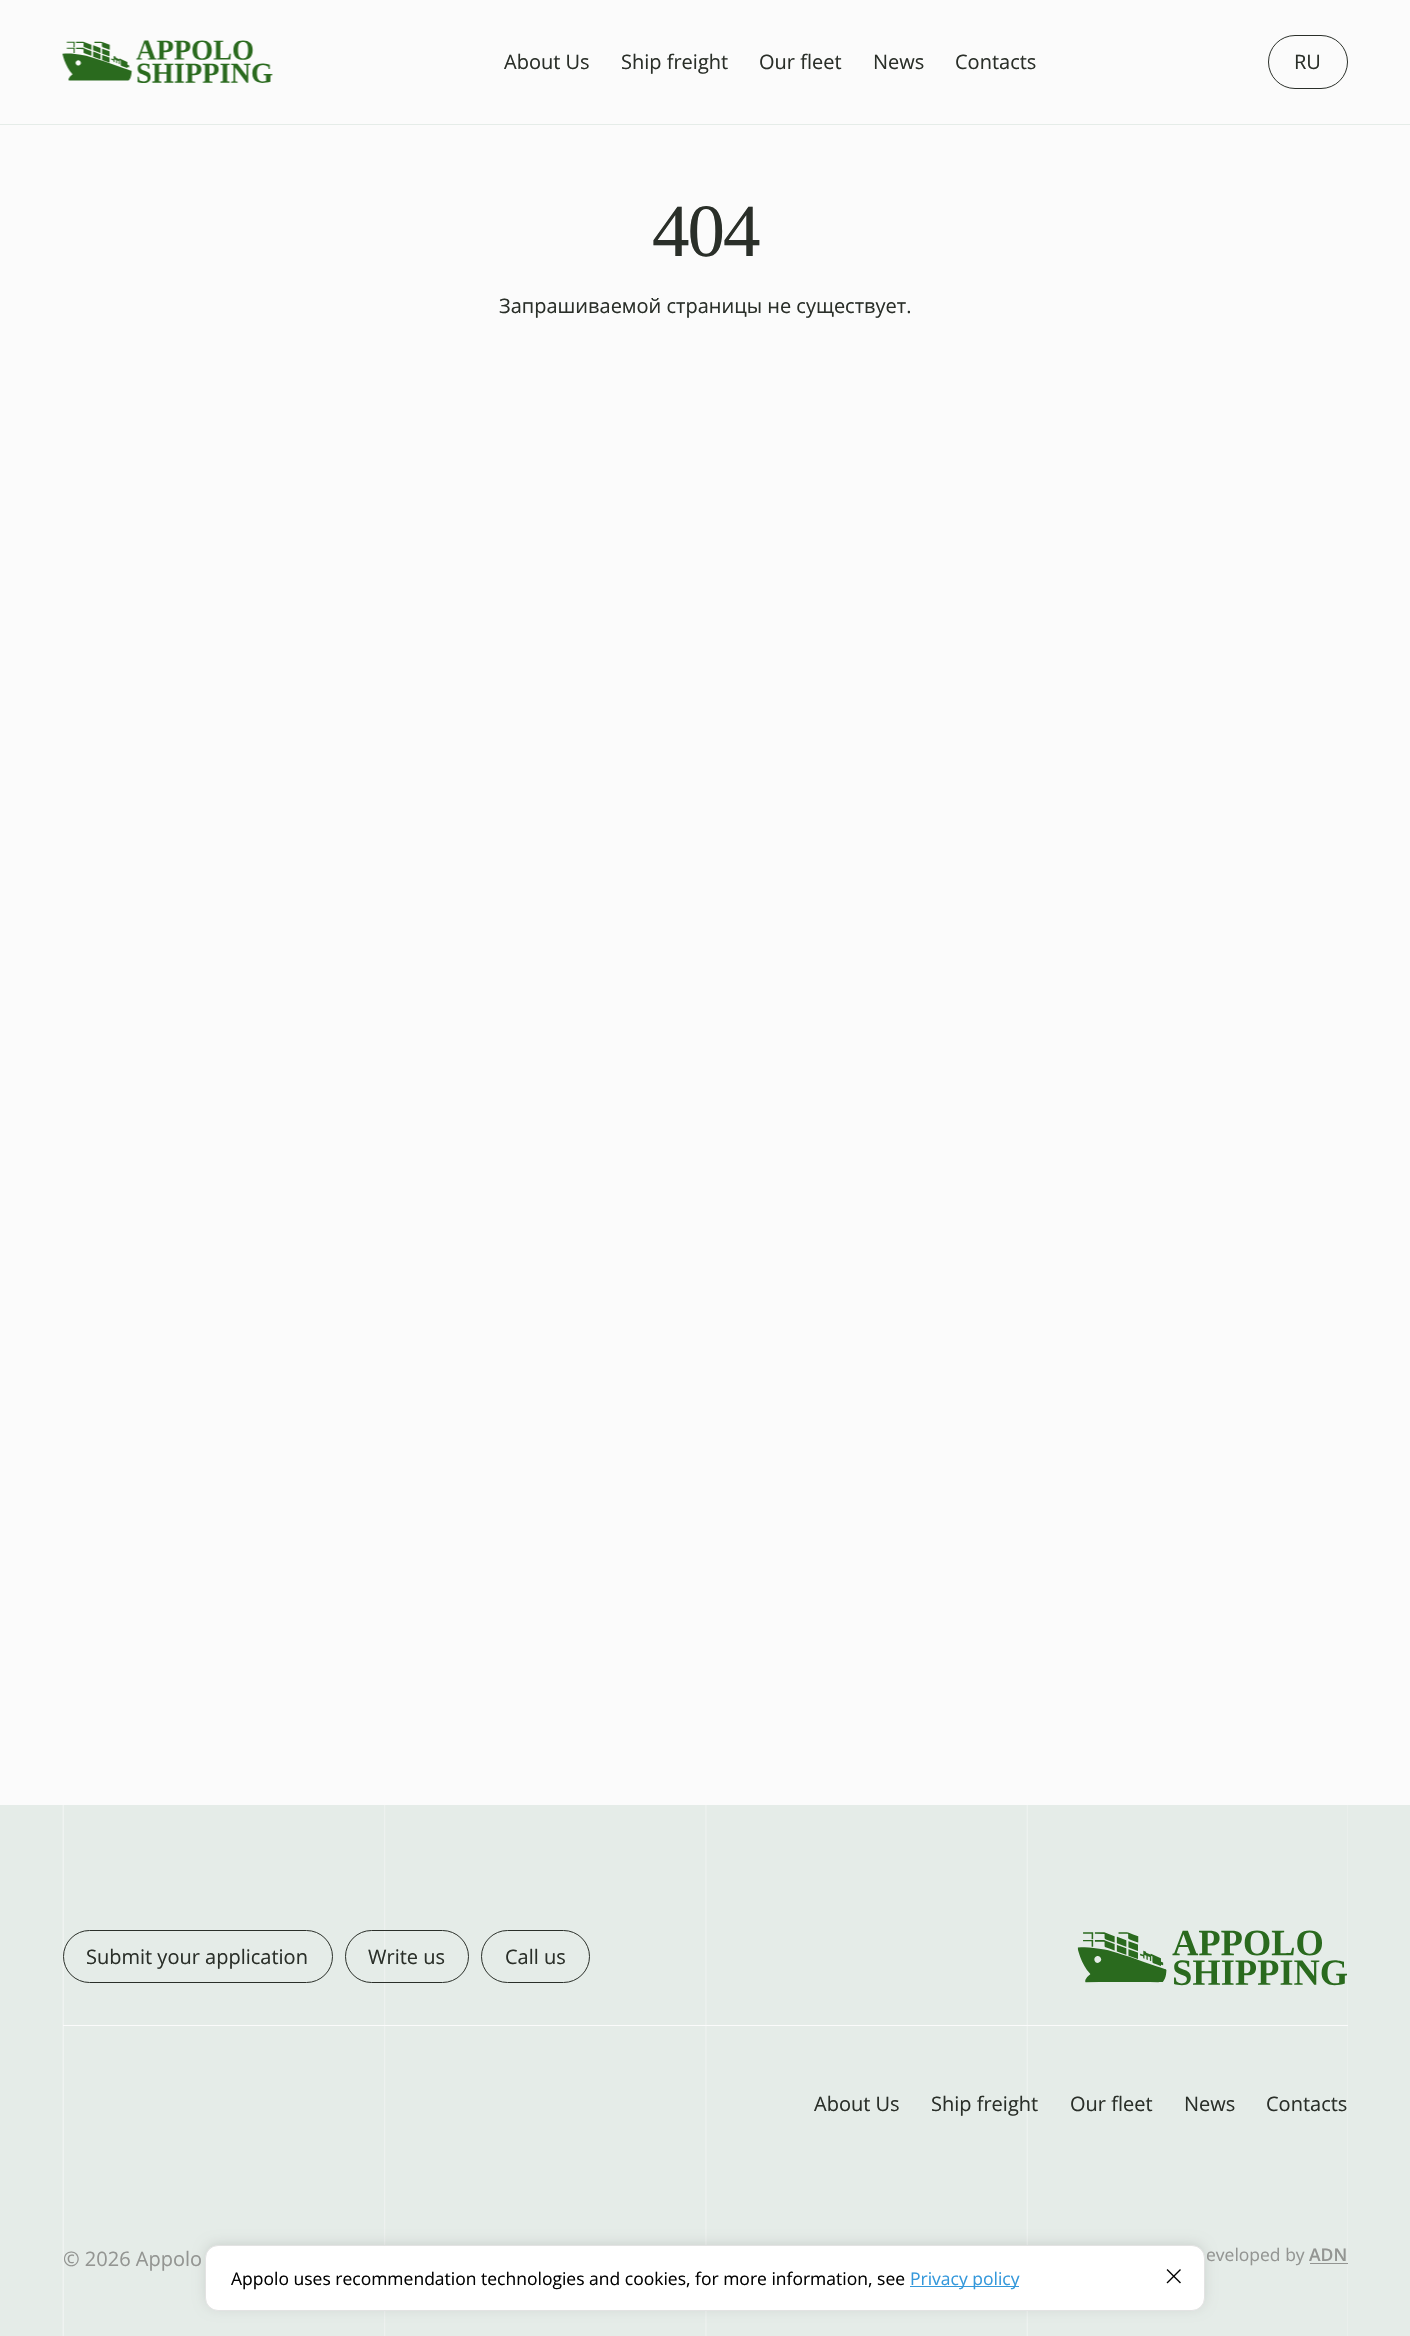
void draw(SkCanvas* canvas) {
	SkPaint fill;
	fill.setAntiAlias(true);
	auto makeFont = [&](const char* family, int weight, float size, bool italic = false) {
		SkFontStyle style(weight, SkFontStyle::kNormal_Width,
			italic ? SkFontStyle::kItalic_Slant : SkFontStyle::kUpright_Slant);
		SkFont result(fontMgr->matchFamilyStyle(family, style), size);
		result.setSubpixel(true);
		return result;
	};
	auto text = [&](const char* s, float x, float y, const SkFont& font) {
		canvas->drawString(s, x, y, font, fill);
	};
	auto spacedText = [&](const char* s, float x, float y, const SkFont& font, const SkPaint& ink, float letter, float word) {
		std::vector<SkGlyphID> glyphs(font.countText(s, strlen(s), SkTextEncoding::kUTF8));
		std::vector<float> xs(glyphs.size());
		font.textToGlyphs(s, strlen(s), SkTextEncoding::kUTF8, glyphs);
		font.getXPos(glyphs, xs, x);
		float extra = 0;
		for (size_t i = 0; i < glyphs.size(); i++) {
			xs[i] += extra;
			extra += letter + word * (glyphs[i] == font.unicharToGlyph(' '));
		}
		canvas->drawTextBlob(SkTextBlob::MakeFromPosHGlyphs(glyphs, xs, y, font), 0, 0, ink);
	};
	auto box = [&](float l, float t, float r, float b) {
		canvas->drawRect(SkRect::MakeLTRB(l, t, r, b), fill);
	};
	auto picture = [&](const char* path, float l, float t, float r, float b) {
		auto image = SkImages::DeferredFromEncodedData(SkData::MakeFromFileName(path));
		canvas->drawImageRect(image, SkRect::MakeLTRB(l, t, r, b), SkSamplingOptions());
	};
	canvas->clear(0xFFFBFBFB);
	fill.setColor(0xFFE5ECE8);
	box(0, 124, 1410, 125);
	picture("image0.png", 62, 40, 273, 83);
	fill.setStyle(SkPaint::kStroke_Style);
	fill.setStrokeWidth(1);
	fill.setColor(0xFF2A2F29);
	canvas->drawRoundRect(SkRect::MakeLTRB(1268.5f, 35.5f, 1347.5f, 88.5f), 26.5f, 26.5f, fill);
	fill.setStyle(SkPaint::kFill_Style);
	fill.setColor(0xFFE5ECE8);
	box(0, 1805, 1410, 2336);
	picture("image1.png", 62, 1805, 1348, 2336);
	fill.setColor(0xFFFBFBFB);
	box(63, 2025, 1348, 2026);
	fill.setStyle(SkPaint::kStroke_Style);
	fill.setColor(0xFF2A2F29);
	canvas->drawRoundRect(SkRect::MakeLTRB(63.5f, 1930.5f, 332.5f, 1982.5f), 26, 26, fill);
	canvas->drawRoundRect(SkRect::MakeLTRB(345.5f, 1930.5f, 468.5f, 1982.5f), 26, 26, fill);
	canvas->drawRoundRect(SkRect::MakeLTRB(481.5f, 1930.5f, 589.5f, 1982.5f), 26, 26, fill);
	picture("image2.png", 1077, 1930, 1348, 1986);
	fill.setStyle(SkPaint::kFill_Style);
	fill.setColor(0xFF939592);
	box(1310, 2263, 1348, 2264);
	fill.setColor(0x1A000000);
	fill.setMaskFilter(SkMaskFilter::MakeBlur(kNormal_SkBlurStyle, 6));
	canvas->drawRoundRect(SkRect::MakeLTRB(205, 2243, 1205, 2309), 13, 13, fill);
	fill.setMaskFilter(nullptr);
	fill.setColor(0xFFFFFFFF);
	canvas->drawRoundRect(SkRect::MakeLTRB(205.5f, 2245.5f, 1204.5f, 2310.5f), 12.5f, 12.5f, fill);
	fill.setStyle(SkPaint::kStroke_Style);
	fill.setColor(0xFFE3E3E3);
	canvas->drawRoundRect(SkRect::MakeLTRB(205.5f, 2245.5f, 1204.5f, 2310.5f), 12.5f, 12.5f, fill);
	fill.setStyle(SkPaint::kFill_Style);
	fill.setColor(0xFF3498DB);
	box(910, 2286, 1019, 2287);
	picture("image3.png", 1166, 2269, 1181, 2284);
	auto font1 = makeFont("Open Sans", 400, 20);
	fill.setColor(0xFF2A2F29);
	text("About Us", 504, 69, font1);
	text("Ship freight", 621, 69, font1);
	text("Our fleet", 759, 69, font1);
	text("News", 873, 69, font1);
	text("Contacts", 955, 69, font1);
	text("RU", 1294, 69, font1);
	auto font2 = makeFont("Tinos", 400, 75);
	spacedText("404", 652, 256, font2, fill, -2, 0);
	text("Запрашиваемой страницы не существует.", 499, 313, font1);
	text("Submit your application", 86, 1964, font1);
	text("Write us", 368, 1964, font1);
	text("Call us", 505, 1964, font1);
	text("About Us", 814, 2111, font1);
	text("Ship freight", 931, 2111, font1);
	text("Our fleet", 1070, 2111, font1);
	text("News", 1184, 2111, font1);
	text("Contacts", 1266, 2111, font1);
	fill.setColor(0xFF939592);
	text("© 2026 Appolo", 63, 2266, font1);
	auto font3 = makeFont("Open Sans", 400, 17.5f);
	text("eveloped by", 1206, 2261, font3);
	auto font4 = makeFont("Open Sans", 600, 17.5f);
	text("ADN", 1309, 2261, font4);
	fill.setColor(0xFF030303);
	text("Appolo uses recommendation technologies and cookies, for more information, see", 231, 2285, font3);
	fill.setColor(0xFF3498DB);
	text("Privacy policy", 910, 2285, font3);
}
